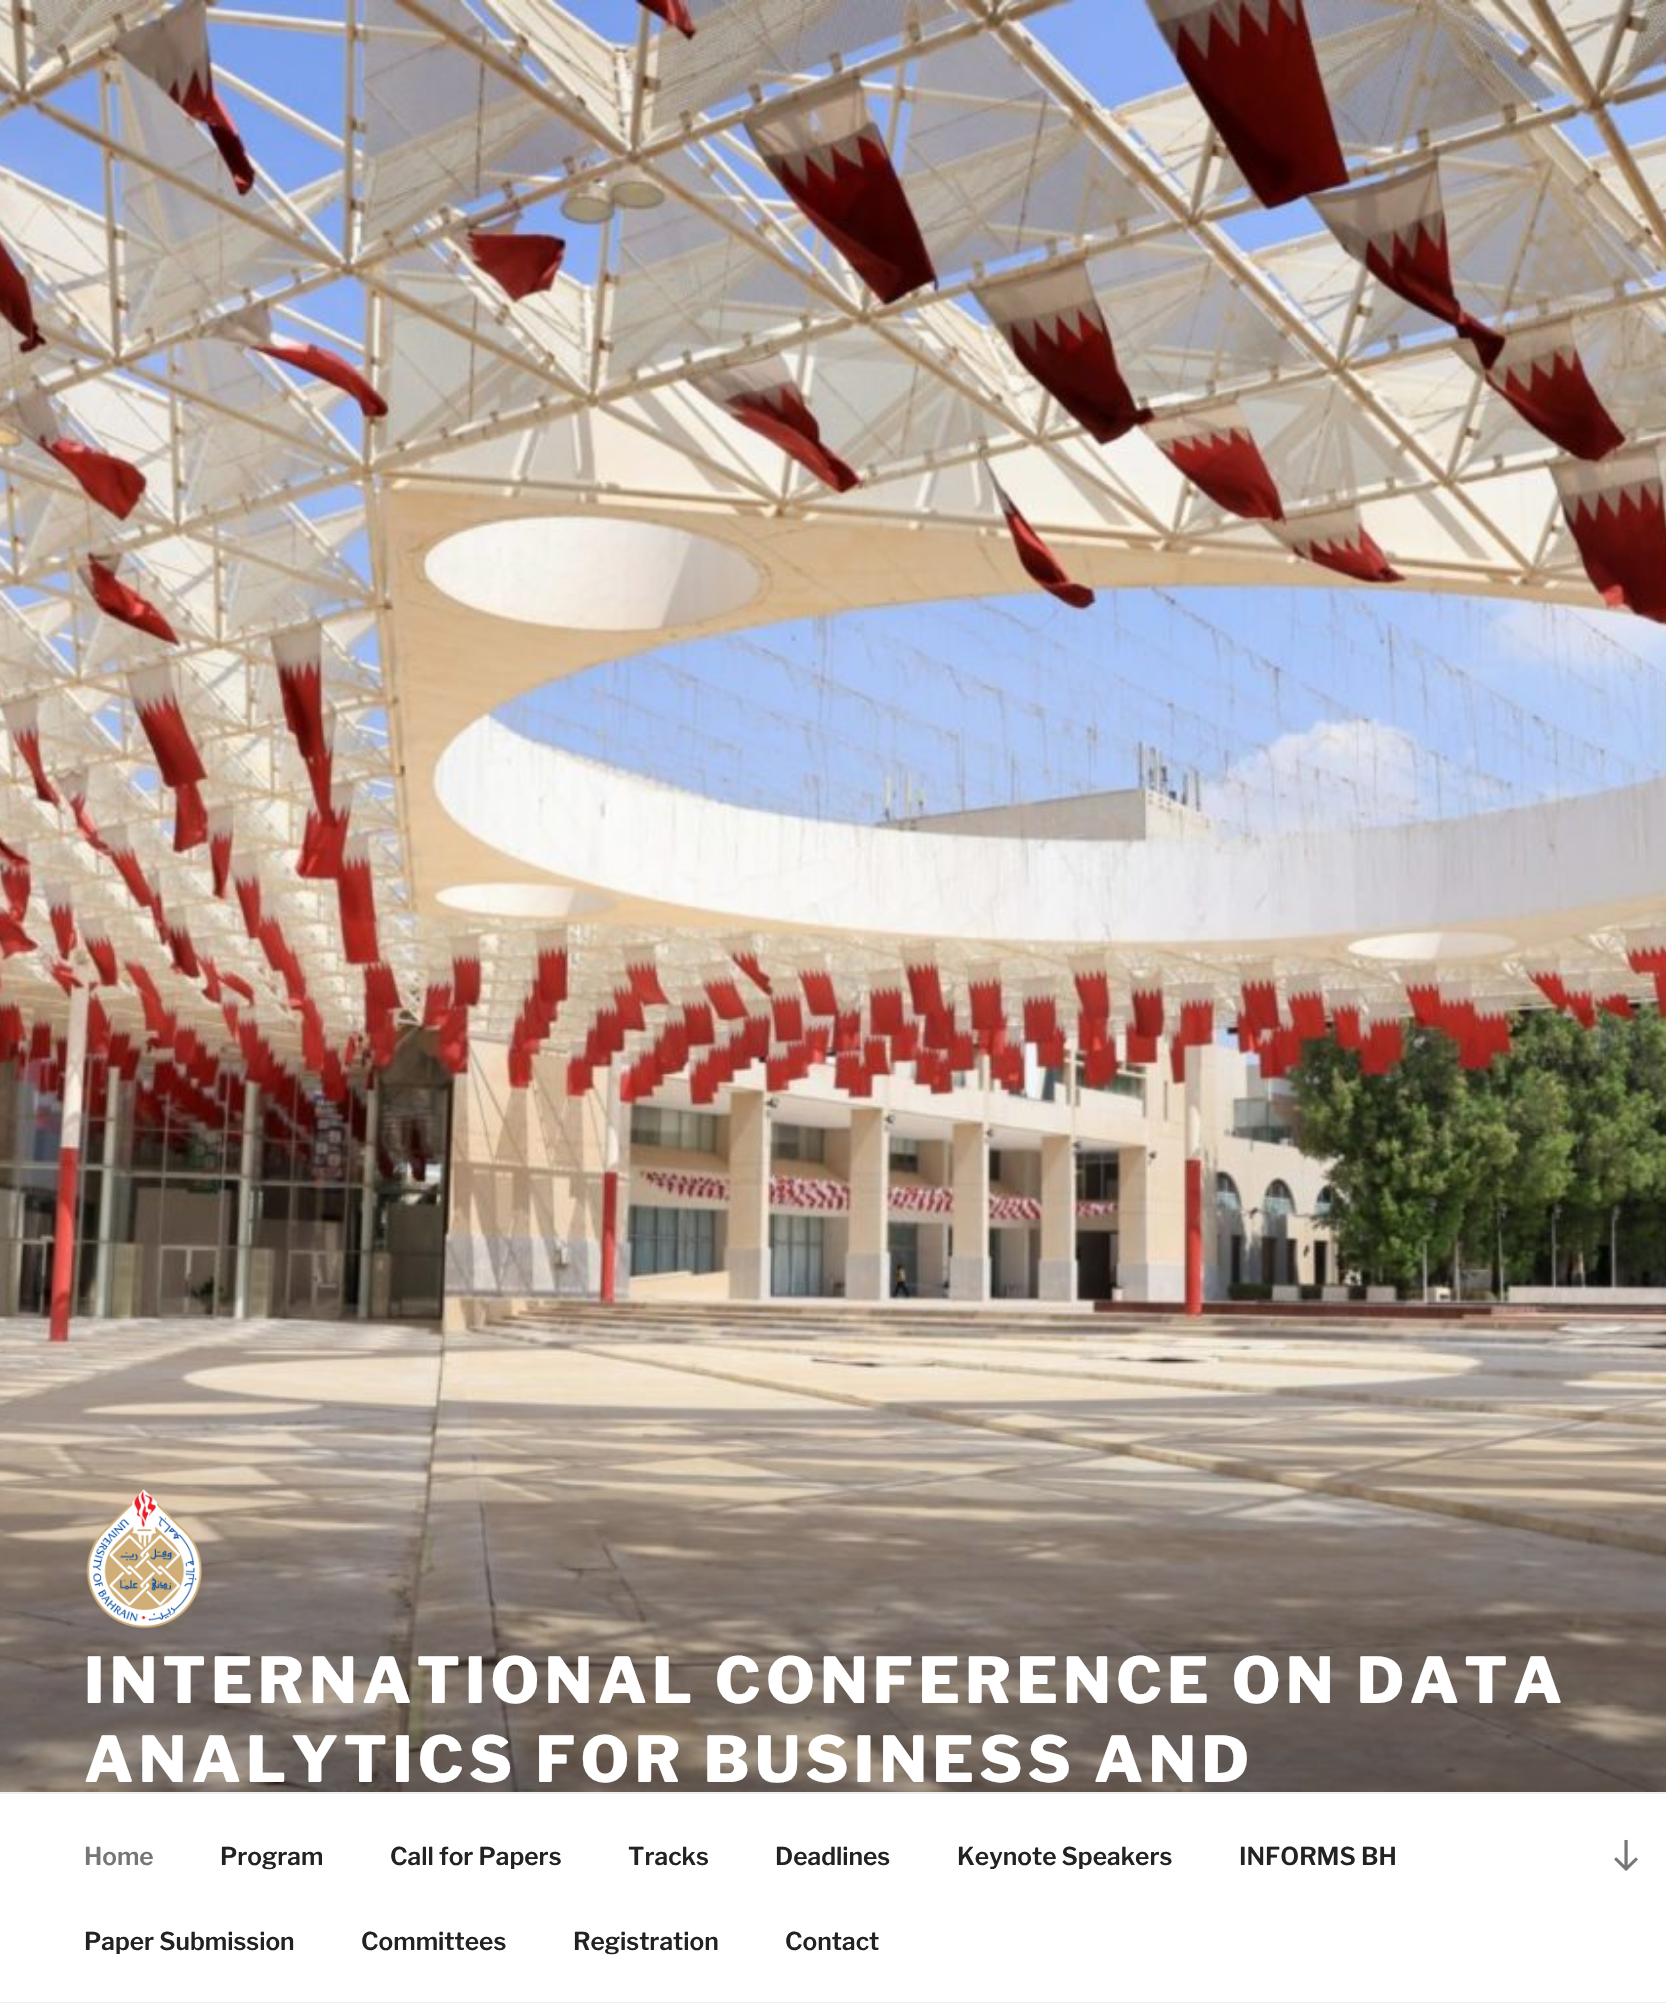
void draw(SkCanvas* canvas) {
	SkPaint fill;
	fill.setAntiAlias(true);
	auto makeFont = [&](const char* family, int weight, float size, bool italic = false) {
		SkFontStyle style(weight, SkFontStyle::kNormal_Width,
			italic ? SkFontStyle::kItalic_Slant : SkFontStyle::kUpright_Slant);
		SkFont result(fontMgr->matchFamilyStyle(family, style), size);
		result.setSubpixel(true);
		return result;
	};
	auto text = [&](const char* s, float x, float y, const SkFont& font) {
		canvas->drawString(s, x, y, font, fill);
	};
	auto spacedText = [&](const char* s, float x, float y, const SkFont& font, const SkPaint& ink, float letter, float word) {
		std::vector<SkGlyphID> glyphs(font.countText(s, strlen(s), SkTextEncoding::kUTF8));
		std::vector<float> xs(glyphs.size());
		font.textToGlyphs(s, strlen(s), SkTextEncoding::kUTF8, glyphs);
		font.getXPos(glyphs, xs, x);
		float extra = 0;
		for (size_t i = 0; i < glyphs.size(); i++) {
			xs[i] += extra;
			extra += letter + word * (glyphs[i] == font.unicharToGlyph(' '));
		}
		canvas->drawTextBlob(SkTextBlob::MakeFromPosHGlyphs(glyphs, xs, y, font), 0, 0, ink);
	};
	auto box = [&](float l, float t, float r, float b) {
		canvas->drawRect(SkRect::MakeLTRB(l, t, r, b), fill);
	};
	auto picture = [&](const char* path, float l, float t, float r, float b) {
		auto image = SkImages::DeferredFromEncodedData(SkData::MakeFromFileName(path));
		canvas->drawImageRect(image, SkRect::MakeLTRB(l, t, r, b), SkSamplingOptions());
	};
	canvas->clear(0xFFFFFFFF);
	picture("image0.png", 0, 0, 1666, 1792);
	picture("image1.png", 86, 1489, 202, 1629);
	fill.setColor(0xFFEEEEEE);
	box(0, 1792, 1666, 1794);
	box(0, 2002, 1666, 2003);
	picture("image2.png", 1614, 1839, 1638, 1871);
	auto font1 = makeFont("Libre Franklin", 100, 63);
	fill.setColor(0xFFFFFFFF);
	spacedText("INTERNATIONAL CONFERENCE ON DATA", 84, 1703, font1, fill, 5.05f, 0);
	spacedText("ANALYTICS FOR BUSINESS AND", 84, 1782, font1, fill, 5.05f, 0);
	auto font2 = makeFont("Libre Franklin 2", 100, 24.5f);
	fill.setColor(0xFF767676);
	text("Home", 84, 1865, font2);
	fill.setColor(0xFF222222);
	text("Program", 220, 1865, font2);
	text("Call for Papers", 390, 1865, font2);
	text("Tracks", 628, 1865, font2);
	text("Deadlines", 775, 1865, font2);
	text("Keynote Speakers", 957, 1865, font2);
	text("INFORMS BH", 1239, 1865, font2);
	text("Paper Submission", 84, 1950, font2);
	text("Committees", 361, 1950, font2);
	text("Registration", 573, 1950, font2);
	text("Contact", 785, 1950, font2);
}
